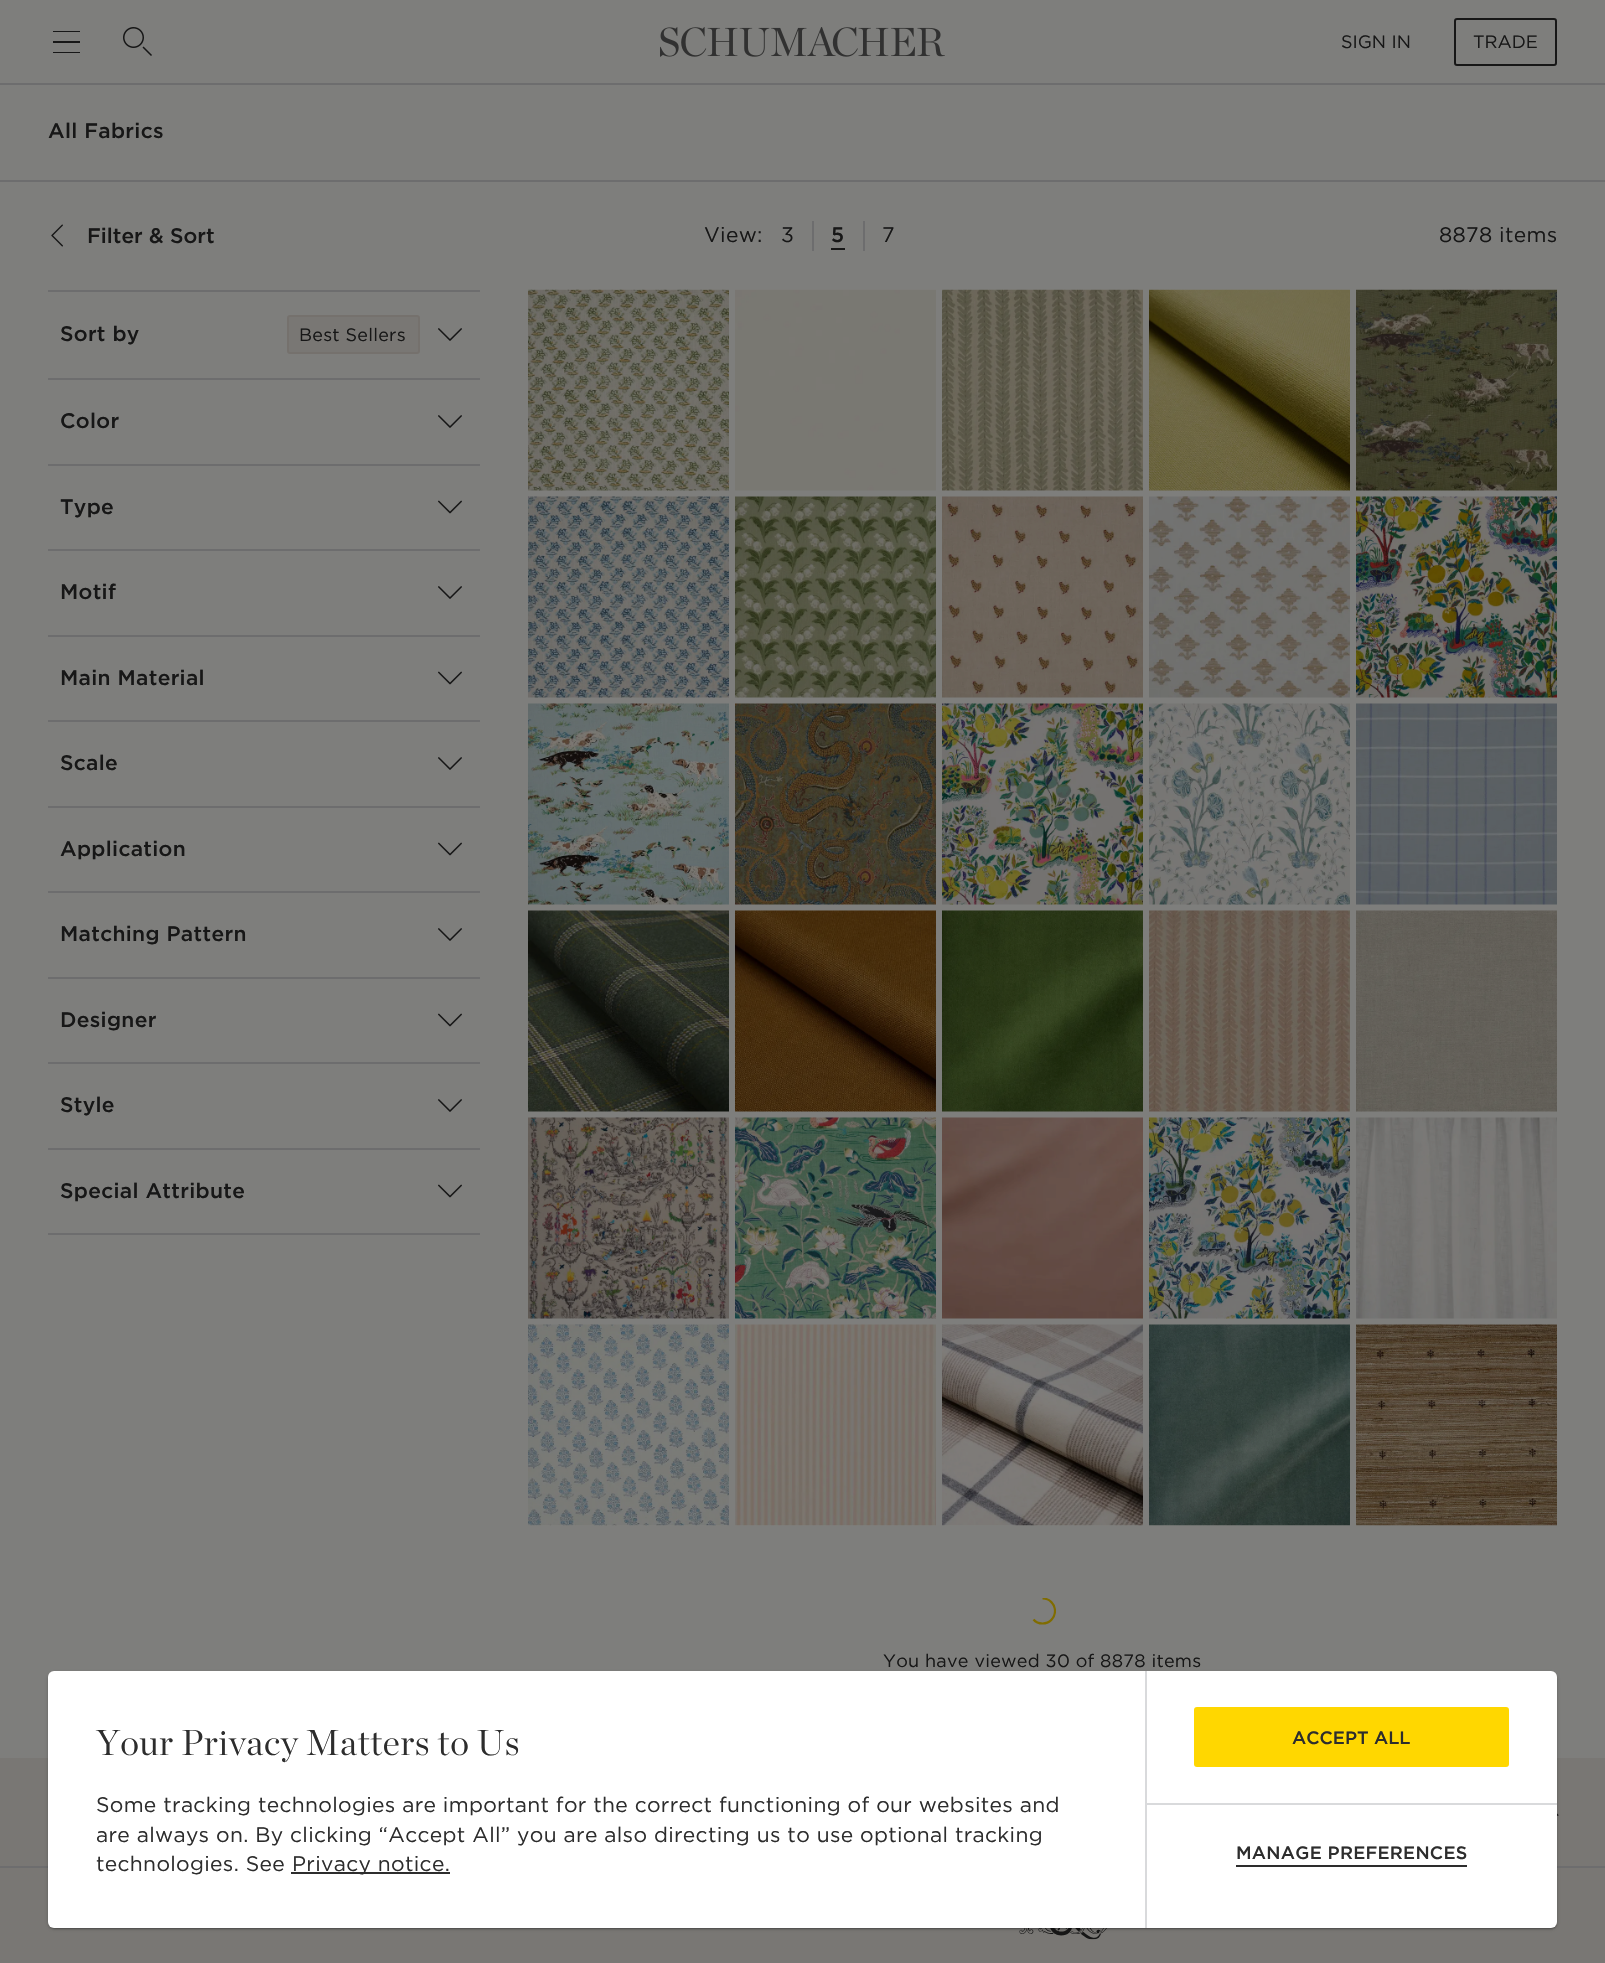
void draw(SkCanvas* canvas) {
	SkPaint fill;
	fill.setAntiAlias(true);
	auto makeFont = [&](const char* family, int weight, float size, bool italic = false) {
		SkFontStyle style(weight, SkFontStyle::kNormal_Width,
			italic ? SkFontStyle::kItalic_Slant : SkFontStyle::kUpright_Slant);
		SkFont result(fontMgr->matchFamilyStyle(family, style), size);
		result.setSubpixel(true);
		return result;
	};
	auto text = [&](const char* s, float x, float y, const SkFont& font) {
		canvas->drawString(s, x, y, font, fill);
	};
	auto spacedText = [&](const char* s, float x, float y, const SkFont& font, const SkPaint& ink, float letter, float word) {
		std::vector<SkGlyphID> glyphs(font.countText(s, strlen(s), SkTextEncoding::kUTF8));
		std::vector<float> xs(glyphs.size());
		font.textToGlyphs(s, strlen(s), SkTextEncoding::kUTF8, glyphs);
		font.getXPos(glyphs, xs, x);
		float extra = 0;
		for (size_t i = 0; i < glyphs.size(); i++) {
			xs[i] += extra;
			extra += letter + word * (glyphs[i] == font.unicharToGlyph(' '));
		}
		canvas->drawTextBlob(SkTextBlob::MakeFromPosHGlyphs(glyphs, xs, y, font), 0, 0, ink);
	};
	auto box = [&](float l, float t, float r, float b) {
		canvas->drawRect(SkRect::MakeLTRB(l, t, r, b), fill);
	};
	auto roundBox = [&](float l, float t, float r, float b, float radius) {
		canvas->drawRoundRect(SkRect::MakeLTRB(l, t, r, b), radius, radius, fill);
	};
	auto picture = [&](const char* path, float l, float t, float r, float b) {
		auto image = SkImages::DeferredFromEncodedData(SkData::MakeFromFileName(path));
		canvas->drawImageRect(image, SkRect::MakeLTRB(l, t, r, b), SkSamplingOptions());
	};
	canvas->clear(0xFF7E7E7C);
	fill.setColor(0xFF6D6D6E);
	box(0, 83, 1605, 85);
	fill.setColor(0xFF171717);
	box(53, 41, 80, 43);
	box(53, 52, 80, 53);
	box(53, 31, 80, 32);
	picture("image0.png", 123, 27, 152, 56);
	picture("image1.png", 660, 27, 945, 57);
	fill.setStyle(SkPaint::kStroke_Style);
	fill.setStrokeWidth(2);
	canvas->drawRoundRect(SkRect::MakeLTRB(1455, 19, 1556, 65), 2, 2, fill);
	fill.setStyle(SkPaint::kFill_Style);
	fill.setColor(0xFF6D6D6E);
	box(0, 180, 1605, 182);
	picture("image2.png", 51, 224, 63, 247);
	box(812, 221, 814, 251);
	fill.setColor(0xFF171717);
	box(831, 248, 845, 250);
	fill.setColor(0xFF6D6D6E);
	box(863, 221, 865, 251);
	box(48, 290, 480, 292);
	box(48, 1233, 480, 1235);
	fill.setColor(0xFF797774);
	canvas->drawRoundRect(SkRect::MakeLTRB(288, 316, 419, 353), 2, 2, fill);
	fill.setStyle(SkPaint::kStroke_Style);
	fill.setColor(0xFF75716D);
	canvas->drawRoundRect(SkRect::MakeLTRB(288, 316, 419, 353), 2, 2, fill);
	picture("image3.png", 438, 328, 462, 341);
	fill.setStyle(SkPaint::kFill_Style);
	fill.setColor(0xFF6D6D6E);
	box(48, 378, 480, 380);
	picture("image3.png", 438, 415, 462, 428);
	box(48, 464, 480, 466);
	picture("image4.png", 438, 500, 462, 514);
	box(48, 549, 480, 551);
	picture("image3.png", 438, 586, 462, 599);
	box(48, 635, 480, 637);
	picture("image4.png", 438, 671, 462, 685);
	box(48, 720, 480, 722);
	picture("image3.png", 438, 757, 462, 770);
	box(48, 806, 480, 808);
	picture("image4.png", 438, 842, 462, 856);
	box(48, 891, 480, 893);
	picture("image3.png", 438, 928, 462, 941);
	box(48, 977, 480, 979);
	picture("image4.png", 438, 1013, 462, 1027);
	box(48, 1062, 480, 1064);
	picture("image3.png", 438, 1099, 462, 1112);
	box(48, 1148, 480, 1150);
	picture("image4.png", 438, 1184, 462, 1198);
	picture("image5.png", 528, 289, 729, 491);
	picture("image6.png", 735, 289, 936, 491);
	picture("image7.png", 942, 289, 1143, 491);
	picture("image8.png", 1149, 289, 1350, 491);
	picture("image9.png", 1356, 289, 1557, 491);
	picture("image10.png", 528, 496, 729, 698);
	picture("image11.png", 735, 496, 936, 698);
	picture("image12.png", 942, 496, 1143, 698);
	picture("image13.png", 1149, 496, 1350, 698);
	picture("image14.png", 1356, 496, 1557, 698);
	picture("image15.png", 528, 703, 729, 905);
	picture("image16.png", 735, 703, 936, 905);
	picture("image17.png", 942, 703, 1143, 905);
	picture("image18.png", 1149, 703, 1350, 905);
	picture("image19.png", 1356, 703, 1557, 905);
	picture("image20.png", 528, 910, 729, 1112);
	picture("image21.png", 735, 910, 936, 1112);
	picture("image22.png", 942, 910, 1143, 1112);
	picture("image23.png", 1149, 910, 1350, 1112);
	picture("image24.png", 1356, 910, 1557, 1112);
	picture("image25.png", 528, 1117, 729, 1319);
	picture("image26.png", 735, 1117, 936, 1319);
	picture("image27.png", 942, 1117, 1143, 1319);
	picture("image28.png", 1149, 1117, 1350, 1319);
	picture("image29.png", 1356, 1117, 1557, 1319);
	picture("image30.png", 528, 1324, 729, 1526);
	picture("image31.png", 735, 1324, 936, 1526);
	picture("image32.png", 942, 1324, 1143, 1526);
	picture("image33.png", 1149, 1324, 1350, 1526);
	picture("image34.png", 1356, 1324, 1557, 1526);
	canvas->save();
	canvas->clipRect(SkRect::MakeLTRB(1029, 1598, 1056, 1625));
	fill.setStyle(SkPaint::kStroke_Style);
	fill.setStrokeWidth(2.2f);
	fill.setColor(0xFF806C00);
	canvas->drawPath(SkPathBuilder().moveTo(1042.5f, 1598.5f).cubicTo(1049.5f, 1598.5f, 1055, 1604, 1055, 1611).cubicTo(1055, 1618, 1049.5f, 1623.5f, 1042.5f, 1623.5f).cubicTo(1039, 1623.5f, 1035.5f, 1622, 1033.5f, 1619.5f).detach(), fill);
	canvas->restore();
	fill.setStyle(SkPaint::kFill_Style);
	fill.setColor(0xFF797774);
	box(0, 1758, 1605, 1963);
	picture("image35.png", 1557, 1813, 1559, 1816);
	fill.setColor(0xFF6D6D6E);
	box(0, 1866, 1605, 1868);
	picture("image36.png", 1019, 1928, 1107, 1940);
	fill.setColor(0x1F000000);
	fill.setMaskFilter(SkMaskFilter::MakeBlur(kNormal_SkBlurStyle, 2));
	canvas->drawRoundRect(SkRect::MakeLTRB(48, 1673, 1557, 1929), 6, 6, fill);
	fill.setMaskFilter(nullptr);
	fill.setColor(0x24000000);
	fill.setMaskFilter(SkMaskFilter::MakeBlur(kNormal_SkBlurStyle, 1));
	canvas->drawRoundRect(SkRect::MakeLTRB(48, 1673, 1557, 1929), 6, 6, fill);
	fill.setMaskFilter(nullptr);
	fill.setColor(0x33000000);
	fill.setMaskFilter(SkMaskFilter::MakeBlur(kNormal_SkBlurStyle, 1));
	canvas->drawRoundRect(SkRect::MakeLTRB(50, 1676, 1556, 1929), 5, 5, fill);
	fill.setMaskFilter(nullptr);
	fill.setColor(0xFFFFFFFF);
	roundBox(48, 1671, 1557, 1928, 6);
	fill.setColor(0xFF2D2D2D);
	box(291, 1872, 450, 1874);
	fill.setColor(0xFFD9DADC);
	box(1145, 1671, 1147, 1928);
	fill.setColor(0xFFFFD700);
	roundBox(1194, 1707, 1509, 1767, 3);
	fill.setColor(0xFFD9DADC);
	box(1146, 1803, 1557, 1805);
	fill.setColor(0xFF2D2D2D);
	box(1236, 1865, 1467, 1867);
	auto font1 = makeFont("Gotham", 400, 18);
	fill.setColor(0xFF171717);
	text("SIGN IN", 1341, 48, font1);
	text("TRADE", 1473, 48, font1);
	auto font2 = makeFont("Gotham", 500, 21);
	spacedText("All Fabrics", 48, 138, font2, fill, 0.32f, 0);
	text("Filter & Sort", 87, 243, font2);
	auto font3 = makeFont("Gotham", 400, 21);
	spacedText("View:", 704, 242, font3, fill, 0.32f, 0);
	spacedText("3", 781, 242, font3, fill, 0.32f, 0);
	spacedText("5", 831, 242, font2, fill, 0.32f, 0);
	spacedText("7", 882, 242, font3, fill, 0.32f, 0);
	spacedText("8878 items", 1439, 242, font3, fill, 0.32f, 0);
	spacedText("Sort by", 60, 341, font2, fill, 0.32f, 0);
	spacedText("Best Sellers", 299, 341, font1, fill, 0.25f, 0);
	spacedText("Color", 60, 428, font2, fill, 0.32f, 0);
	spacedText("Type", 60, 514, font2, fill, 0.32f, 0);
	spacedText("Motif", 60, 599, font2, fill, 0.32f, 0);
	spacedText("Main Material", 60, 685, font2, fill, 0.32f, 0);
	spacedText("Scale", 60, 770, font2, fill, 0.32f, 0);
	spacedText("Application", 60, 856, font2, fill, 0.32f, 0);
	spacedText("Matching Pattern", 60, 941, font2, fill, 0.32f, 0);
	spacedText("Designer", 60, 1027, font2, fill, 0.32f, 0);
	spacedText("Style", 60, 1112, font2, fill, 0.32f, 0);
	spacedText("Special Attribute", 60, 1198, font2, fill, 0.32f, 0);
	spacedText("You have viewed 30 of 8878 items", 883, 1667, font1, fill, 0.25f, 0);
	auto font4 = makeFont("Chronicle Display", 300, 36);
	fill.setColor(0xFF2D2D2D);
	spacedText("Your Privacy Matters to Us", 96, 1755, font4, fill, 0.55f, 0);
	spacedText("Some tracking technologies are important for the correct functioning of our websites and", 96, 1812, font3, fill, 0.32f, 0);
	spacedText("are always on. By clicking “Accept All” you are also directing us to use optional tracking", 96, 1842, font3, fill, 0.32f, 0);
	spacedText("technologies. See", 96, 1871, font3, fill, 0.32f, 0);
	spacedText("Privacy notice.", 292, 1871, font3, fill, 0.32f, 0);
	auto font5 = makeFont("Gotham", 500, 18);
	text("ACCEPT ALL", 1292, 1744, font5);
	spacedText("MANAGE PREFERENCES", 1236, 1859, font5, fill, 0.25f, 0);
}
